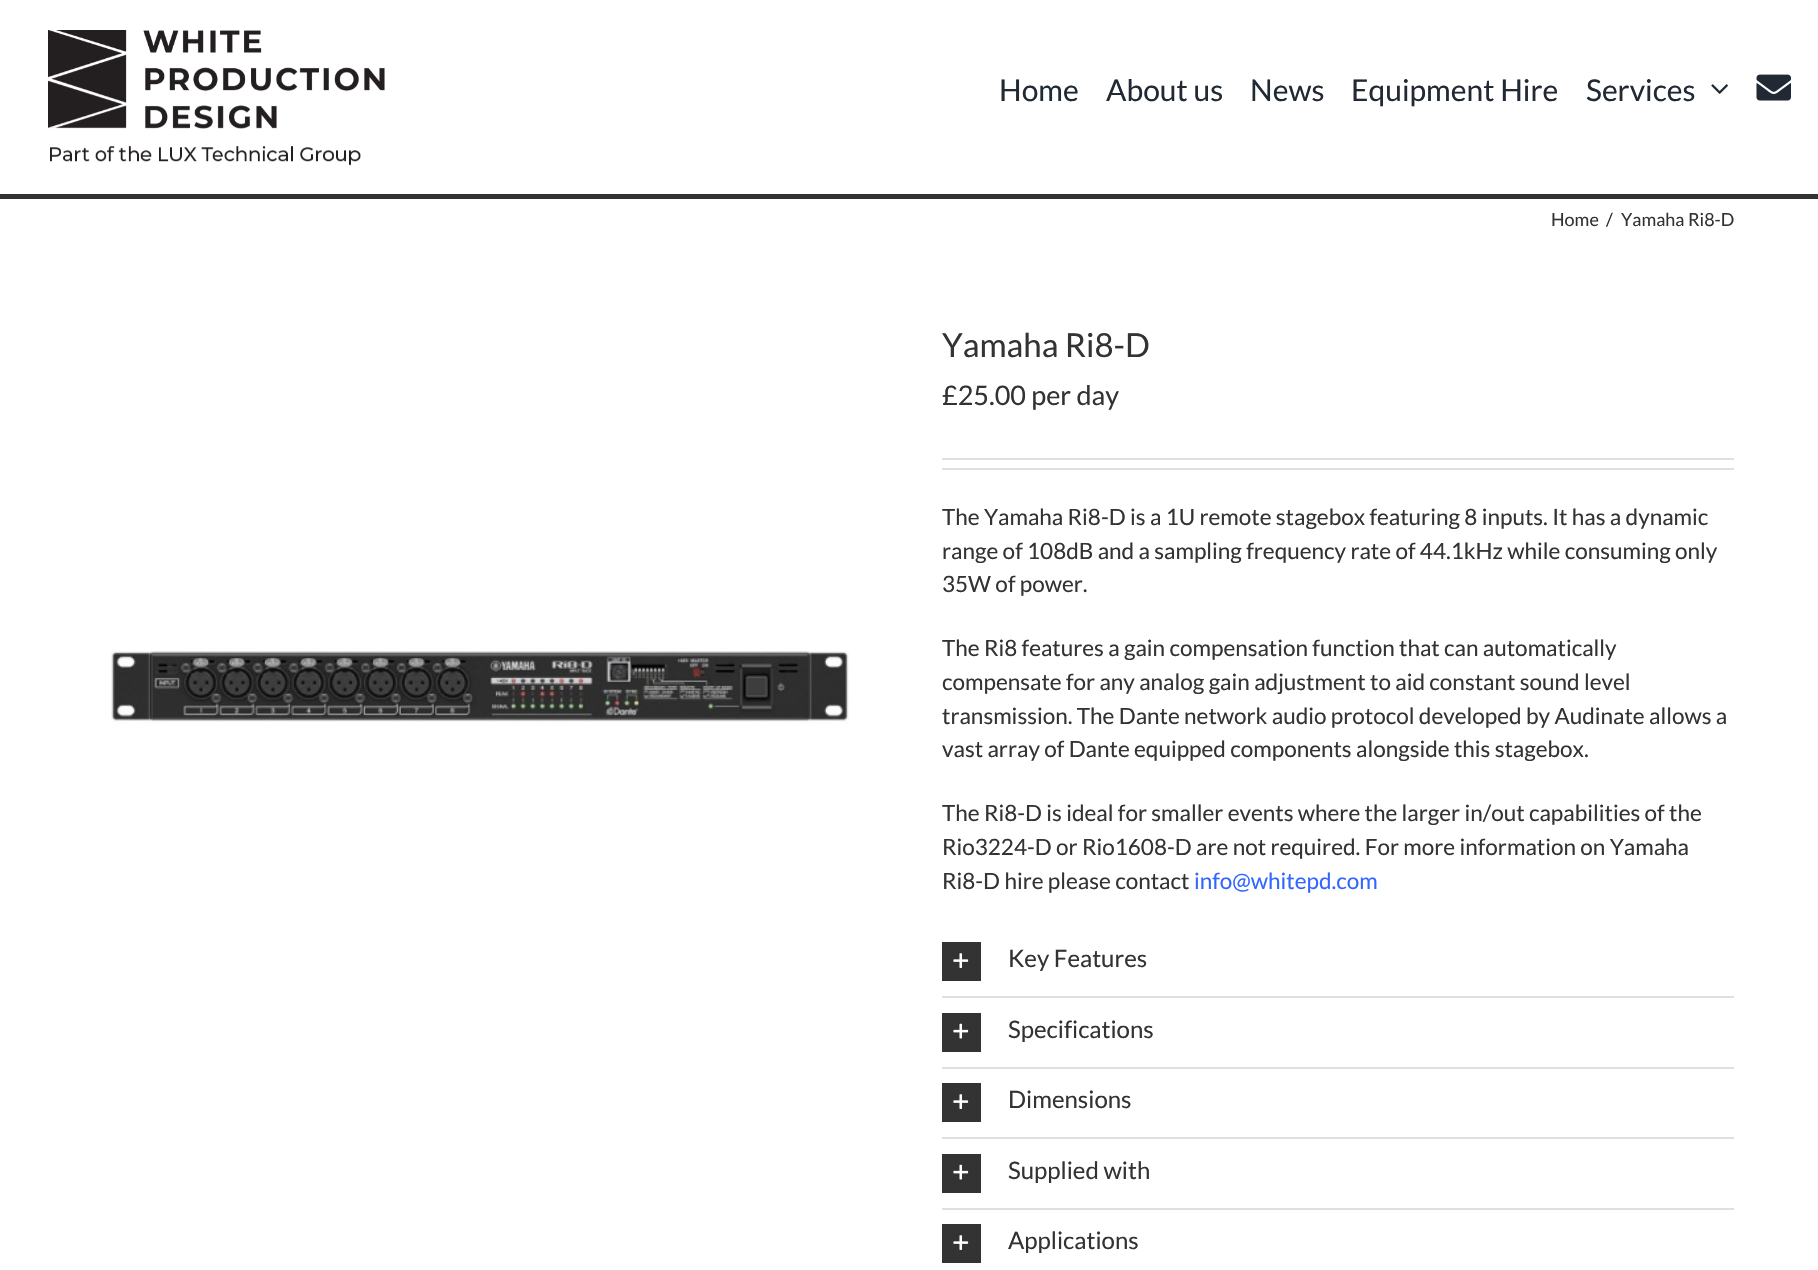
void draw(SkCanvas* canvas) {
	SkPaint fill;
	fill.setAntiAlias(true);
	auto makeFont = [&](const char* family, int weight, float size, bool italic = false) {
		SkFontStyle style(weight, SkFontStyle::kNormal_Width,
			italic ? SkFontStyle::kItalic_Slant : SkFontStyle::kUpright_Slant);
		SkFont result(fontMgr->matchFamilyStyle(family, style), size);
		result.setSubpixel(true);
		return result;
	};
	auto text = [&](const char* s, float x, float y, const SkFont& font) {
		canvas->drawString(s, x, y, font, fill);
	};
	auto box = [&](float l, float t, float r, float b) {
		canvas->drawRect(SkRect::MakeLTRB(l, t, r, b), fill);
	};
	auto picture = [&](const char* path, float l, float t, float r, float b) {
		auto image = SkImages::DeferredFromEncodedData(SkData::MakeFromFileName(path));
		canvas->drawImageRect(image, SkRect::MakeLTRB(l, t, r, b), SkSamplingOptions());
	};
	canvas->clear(0xFFFFFFFF);
	fill.setColor(0xFF333333);
	box(0, 194, 1818, 199);
	picture("image0.png", 48, 30, 385, 166);
	picture("image1.png", 1711, 84, 1728, 94);
	picture("image2.png", 1756, 74, 1791, 101);
	picture("image3.png", 111, 651, 849, 724);
	fill.setColor(0xFFE0DEDE);
	box(942, 458, 1734, 460);
	box(942, 468, 1734, 470);
	box(942, 996, 1734, 998);
	fill.setColor(0xFF333333);
	box(942, 942, 981, 981);
	picture("image4.png", 953, 953, 969, 968);
	fill.setColor(0xFFE0DEDE);
	box(942, 1067, 1734, 1069);
	fill.setColor(0xFF333333);
	box(942, 1013, 981, 1052);
	picture("image5.png", 953, 1023, 969, 1039);
	fill.setColor(0xFFE0DEDE);
	box(942, 1137, 1734, 1139);
	fill.setColor(0xFF333333);
	box(942, 1083, 981, 1122);
	picture("image4.png", 953, 1094, 969, 1109);
	fill.setColor(0xFFE0DEDE);
	box(942, 1208, 1734, 1210);
	fill.setColor(0xFF333333);
	box(942, 1154, 981, 1193);
	picture("image5.png", 953, 1164, 969, 1180);
	box(942, 1224, 981, 1263);
	picture("image4.png", 953, 1235, 969, 1250);
	auto font1 = makeFont("Lato", 400, 30);
	fill.setColor(0xFF212934);
	text("Home", 999, 101, font1);
	text("About us", 1106, 101, font1);
	text("News", 1250, 101, font1);
	text("Equipment Hire", 1351, 101, font1);
	text("Services", 1586, 101, font1);
	auto font2 = makeFont("Lato", 400, 18);
	fill.setColor(0xFF333333);
	text("Home", 1551, 226, font2);
	text("/", 1606, 226, font2);
	text("Yamaha Ri8-D", 1621, 226, font2);
	auto font3 = makeFont("Lato", 400, 33);
	text("Yamaha Ri8-D", 942, 357, font3);
	auto font4 = makeFont("Lato", 400, 27);
	text("£25.00 per day", 942, 405, font4);
	auto font5 = makeFont("Lato", 400, 22.5f);
	text("The Yamaha Ri8-D is a 1U remote stagebox featuring 8 inputs. It has a dynamic", 942, 525, font5);
	text("range of 108dB and a sampling frequency rate of 44.1kHz while consuming only", 942, 559, font5);
	text("35W of power.", 942, 592, font5);
	text("The Ri8 features a gain compensation function that can automatically", 942, 656, font5);
	text("compensate for any analog gain adjustment to aid constant sound level", 942, 690, font5);
	text("transmission. The Dante network audio protocol developed by Audinate allows a", 942, 724, font5);
	text("vast array of Dante equipped components alongside this stagebox.", 942, 757, font5);
	text("The Ri8-D is ideal for smaller events where the larger in/out capabilities of the", 942, 821, font5);
	text("Rio3224-D or Rio1608-D are not required. For more information on Yamaha", 942, 855, font5);
	text("Ri8-D hire please contact", 942, 889, font5);
	fill.setColor(0xFF3366FF);
	text("info@whitepd.com", 1194, 889, font5);
	auto font6 = makeFont("Lato", 400, 24);
	fill.setColor(0xFF333333);
	text("Key Features", 1008, 967, font6);
	text("Specifications", 1008, 1038, font6);
	text("Dimensions", 1008, 1108, font6);
	text("Supplied with", 1008, 1179, font6);
	text("Applications", 1008, 1249, font6);
}
